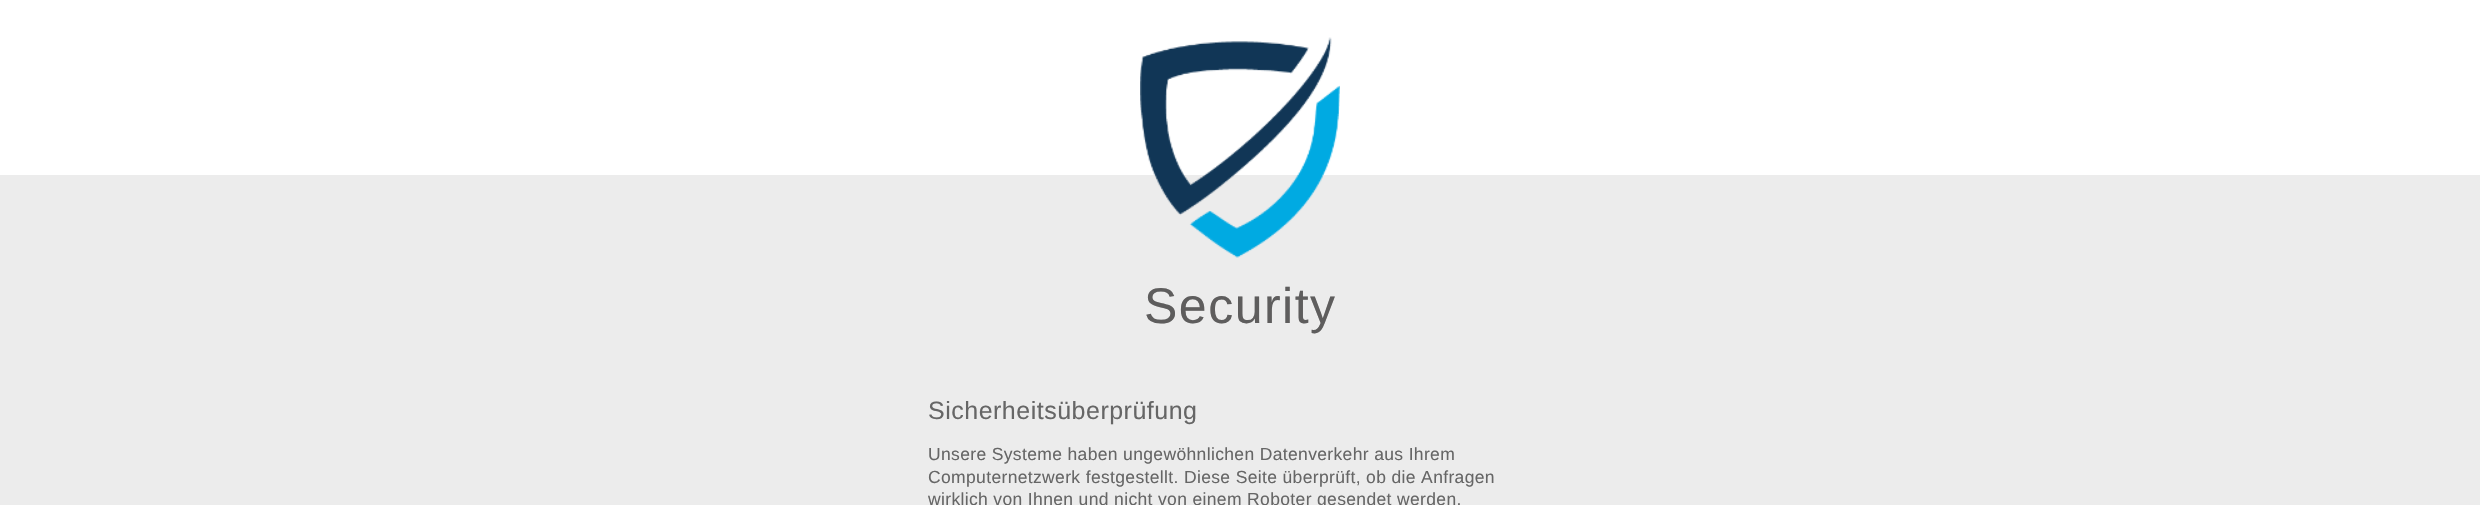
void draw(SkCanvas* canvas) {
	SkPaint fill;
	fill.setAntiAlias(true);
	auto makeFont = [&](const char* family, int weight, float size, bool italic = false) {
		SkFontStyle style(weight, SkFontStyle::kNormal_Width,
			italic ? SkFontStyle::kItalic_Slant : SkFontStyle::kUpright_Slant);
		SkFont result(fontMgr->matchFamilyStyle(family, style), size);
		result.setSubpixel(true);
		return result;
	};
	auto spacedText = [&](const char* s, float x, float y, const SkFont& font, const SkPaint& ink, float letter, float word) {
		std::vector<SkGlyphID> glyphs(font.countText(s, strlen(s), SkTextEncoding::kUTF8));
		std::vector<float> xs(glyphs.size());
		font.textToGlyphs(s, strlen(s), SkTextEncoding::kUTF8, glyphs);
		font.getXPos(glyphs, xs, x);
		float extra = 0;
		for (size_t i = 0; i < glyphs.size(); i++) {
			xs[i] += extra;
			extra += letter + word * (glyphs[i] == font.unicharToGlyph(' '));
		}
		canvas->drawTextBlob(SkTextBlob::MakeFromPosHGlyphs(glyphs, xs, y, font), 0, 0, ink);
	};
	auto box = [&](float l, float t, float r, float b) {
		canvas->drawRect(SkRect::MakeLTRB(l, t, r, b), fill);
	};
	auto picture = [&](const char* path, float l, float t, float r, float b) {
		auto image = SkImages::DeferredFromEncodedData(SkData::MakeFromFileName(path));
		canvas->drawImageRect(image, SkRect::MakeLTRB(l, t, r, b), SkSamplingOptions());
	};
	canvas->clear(0xFFFFFFFF);
	fill.setColor(0xFFECECEC);
	box(0, 175, 2480, 505);
	picture("image0.png", 1140, 37, 1340, 258);
	auto font1 = makeFont("Liberation Sans", 400, 50);
	fill.setColor(0xFF5E5D5D);
	spacedText("Security", 1144, 323, font1, fill, 1.5f, 0);
	auto font2 = makeFont("Liberation Sans", 400, 25);
	fill.setColor(0xFF666666);
	spacedText("Sicherheitsüberprüfung", 928, 419, font2, fill, 0.5f, 0);
	auto font3 = makeFont("Liberation Sans", 400, 17.5f);
	spacedText("Unsere Systeme haben ungewöhnlichen Datenverkehr aus Ihrem", 928, 460, font3, fill, 0.35f, 0);
	spacedText("Computernetzwerk festgestellt. Diese Seite überprüft, ob die Anfragen", 928, 483, font3, fill, 0.35f, 0);
	spacedText("wirklich von Ihnen und nicht von einem Roboter gesendet werden.", 928, 505, font3, fill, 0.35f, 0);
}
